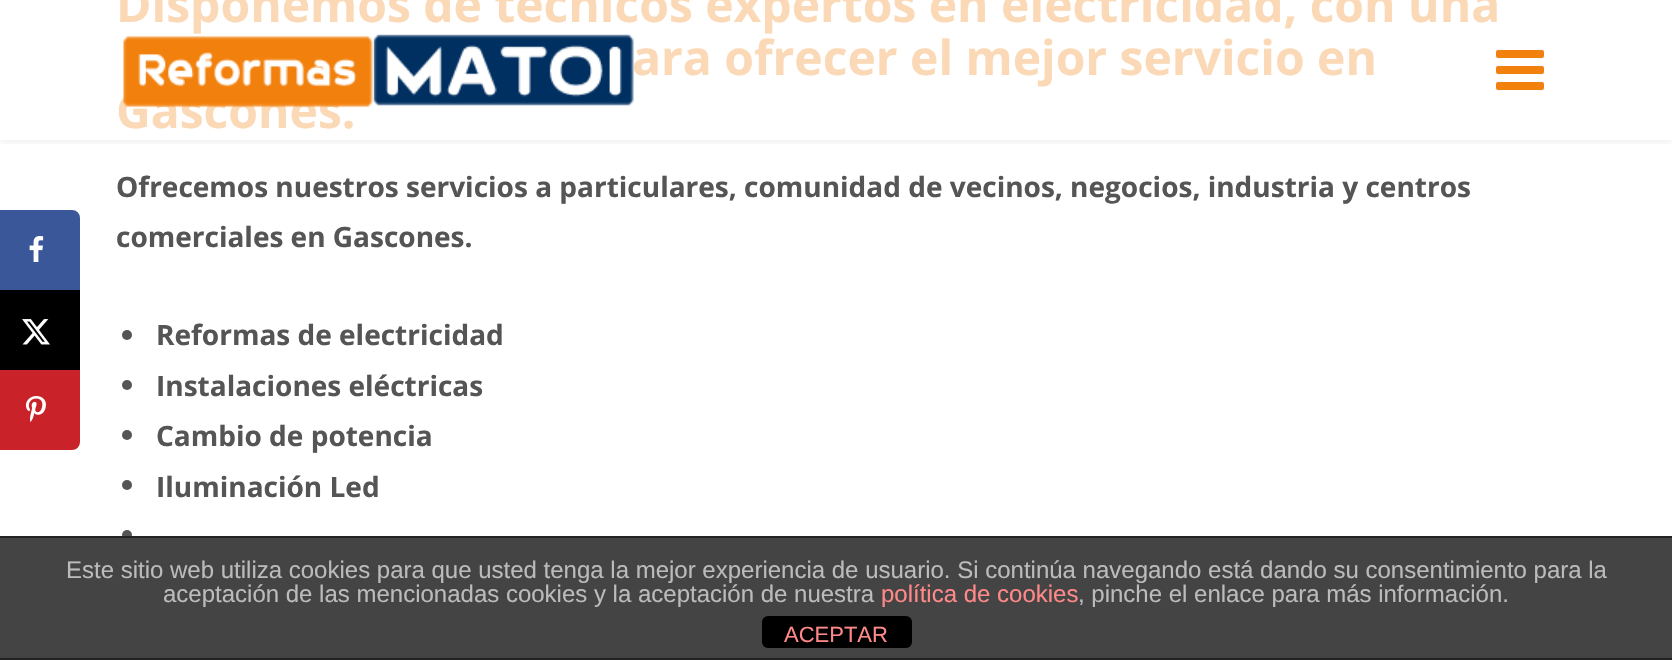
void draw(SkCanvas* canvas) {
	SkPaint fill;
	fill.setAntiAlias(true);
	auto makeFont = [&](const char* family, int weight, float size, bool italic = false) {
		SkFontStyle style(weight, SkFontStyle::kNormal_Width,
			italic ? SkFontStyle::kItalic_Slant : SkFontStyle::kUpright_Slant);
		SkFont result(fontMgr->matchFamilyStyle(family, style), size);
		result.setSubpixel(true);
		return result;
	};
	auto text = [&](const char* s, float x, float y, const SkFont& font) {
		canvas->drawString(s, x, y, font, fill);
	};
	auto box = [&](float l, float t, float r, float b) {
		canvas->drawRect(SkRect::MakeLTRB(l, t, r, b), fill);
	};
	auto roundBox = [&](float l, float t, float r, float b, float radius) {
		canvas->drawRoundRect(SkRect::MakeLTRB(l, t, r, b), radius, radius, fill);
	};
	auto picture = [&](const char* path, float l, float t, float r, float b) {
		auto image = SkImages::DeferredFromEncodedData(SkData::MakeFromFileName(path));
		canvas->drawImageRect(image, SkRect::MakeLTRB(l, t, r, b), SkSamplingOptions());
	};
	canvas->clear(0xFFFFFFFF);
	fill.setColor(0xFF3A579A);
	canvas->drawPath(SkPathBuilder().moveTo(2, 212).lineTo(72, 212).cubicTo(75.5f, 212, 78, 214.5f, 78, 218).lineTo(78, 288).lineTo(2, 288).close().detach(), fill);
	fill.setStyle(SkPaint::kStroke_Style);
	fill.setStrokeWidth(4);
	canvas->drawPath(SkPathBuilder().moveTo(2, 212).lineTo(72, 212).cubicTo(75.5f, 212, 78, 214.5f, 78, 218).lineTo(78, 288).lineTo(2, 288).close().detach(), fill);
	picture("image0.png", 29, 236, 44, 262);
	fill.setStyle(SkPaint::kFill_Style);
	fill.setColor(0xFF000000);
	box(0, 290, 80, 370);
	picture("image1.png", 22, 319, 50, 345);
	fill.setColor(0xFFC92228);
	canvas->drawPath(SkPathBuilder().moveTo(2, 372).lineTo(78, 372).lineTo(78, 442).cubicTo(78, 445.5f, 75.5f, 448, 72, 448).lineTo(2, 448).close().detach(), fill);
	fill.setStyle(SkPaint::kStroke_Style);
	canvas->drawPath(SkPathBuilder().moveTo(2, 372).lineTo(78, 372).lineTo(78, 442).cubicTo(78, 445.5f, 75.5f, 448, 72, 448).lineTo(2, 448).close().detach(), fill);
	picture("image2.png", 25, 396, 46, 422);
	canvas->save();
	canvas->clipRect(SkRect::MakeLTRB(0, 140, 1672, 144));
	fill.setStyle(SkPaint::kFill_Style);
	fill.setColor(0x1A000000);
	fill.setMaskFilter(SkMaskFilter::MakeBlur(kNormal_SkBlurStyle, 5));
	canvas->drawRect(SkRect::MakeLTRB(0, 0, 1672, 140), fill);
	fill.setMaskFilter(nullptr);
	canvas->restore();
	picture("image4.png", 1496, 50, 1544, 90);
	fill.setColor(0xFF555555);
	canvas->drawCircle(127, 335, 5, fill);
	canvas->drawCircle(127, 385, 5, fill);
	canvas->drawCircle(127, 435, 5, fill);
	canvas->drawCircle(127, 485, 5, fill);
	canvas->drawCircle(127, 535, 5, fill);
	fill.setColor(0xFF444444);
	box(0, 538, 1672, 658);
	fill.setColor(0xFF222222);
	box(0, 536, 1672, 538);
	box(0, 658, 1672, 660);
	fill.setColor(0xFF000000);
	roundBox(762, 616, 912, 648, 6);
	auto font1 = makeFont("Open Sans", 700, 48);
	fill.setColor(0xFFFBD9B6);
	text("Disponemos de técnicos expertos en electricidad, con una", 116, 22, font1);
	text("ara ofrecer el mejor servicio en", 632, 75, font1);
	text("Gascones.", 116, 128, font1);
	picture("image3.png", 123, 34, 634, 108);
	auto font2 = makeFont("Open Sans", 700, 28);
	fill.setColor(0xFF555555);
	text("Ofrecemos nuestros servicios a particulares, comunidad de vecinos, negocios, industria y centros", 116, 197, font2);
	text("comerciales en Gascones.", 116, 247, font2);
	text("Reformas de electricidad", 156, 345, font2);
	text("Instalaciones eléctricas", 156, 396, font2);
	text("Cambio de potencia", 156, 446, font2);
	text("Iluminación Led", 156, 497, font2);
	auto font3 = makeFont("Liberation Sans", 400, 24);
	fill.setColor(0xFFBBBBBB);
	text("Este sitio web utiliza cookies para que usted tenga la mejor experiencia de usuario. Si continúa navegando está dando su consentimiento para la", 66, 578, font3);
	text("aceptación de las mencionadas cookies y la aceptación de nuestra", 163, 602, font3);
	fill.setColor(0xFFFF8888);
	text("política de cookies", 881, 602, font3);
	fill.setColor(0xFFBBBBBB);
	text(", pinche el enlace para más información.", 1078, 602, font3);
	auto font4 = makeFont("Liberation Sans", 400, 22);
	fill.setColor(0xFFFF8888);
	text("ACEPTAR", 784, 642, font4);
}
